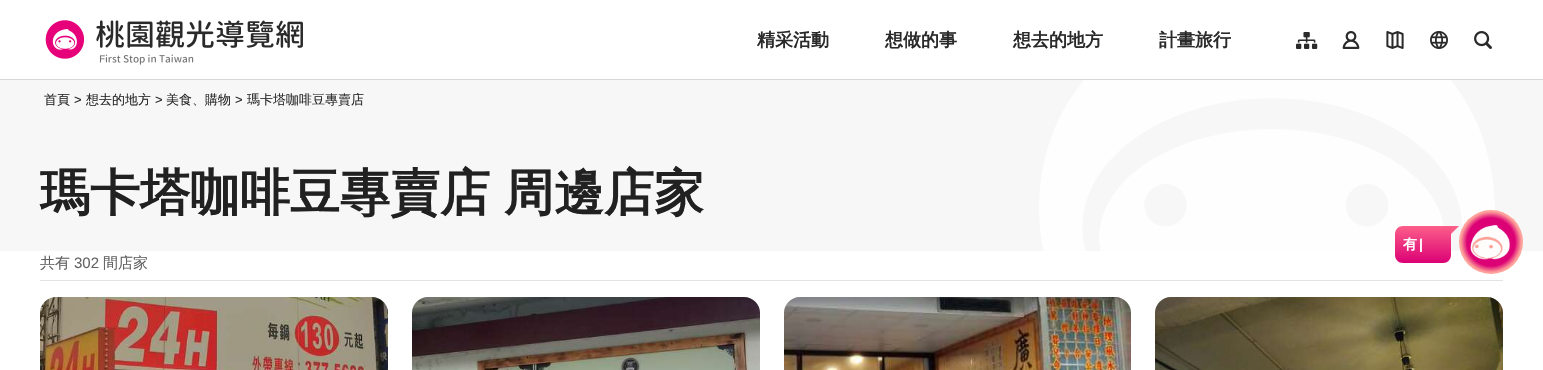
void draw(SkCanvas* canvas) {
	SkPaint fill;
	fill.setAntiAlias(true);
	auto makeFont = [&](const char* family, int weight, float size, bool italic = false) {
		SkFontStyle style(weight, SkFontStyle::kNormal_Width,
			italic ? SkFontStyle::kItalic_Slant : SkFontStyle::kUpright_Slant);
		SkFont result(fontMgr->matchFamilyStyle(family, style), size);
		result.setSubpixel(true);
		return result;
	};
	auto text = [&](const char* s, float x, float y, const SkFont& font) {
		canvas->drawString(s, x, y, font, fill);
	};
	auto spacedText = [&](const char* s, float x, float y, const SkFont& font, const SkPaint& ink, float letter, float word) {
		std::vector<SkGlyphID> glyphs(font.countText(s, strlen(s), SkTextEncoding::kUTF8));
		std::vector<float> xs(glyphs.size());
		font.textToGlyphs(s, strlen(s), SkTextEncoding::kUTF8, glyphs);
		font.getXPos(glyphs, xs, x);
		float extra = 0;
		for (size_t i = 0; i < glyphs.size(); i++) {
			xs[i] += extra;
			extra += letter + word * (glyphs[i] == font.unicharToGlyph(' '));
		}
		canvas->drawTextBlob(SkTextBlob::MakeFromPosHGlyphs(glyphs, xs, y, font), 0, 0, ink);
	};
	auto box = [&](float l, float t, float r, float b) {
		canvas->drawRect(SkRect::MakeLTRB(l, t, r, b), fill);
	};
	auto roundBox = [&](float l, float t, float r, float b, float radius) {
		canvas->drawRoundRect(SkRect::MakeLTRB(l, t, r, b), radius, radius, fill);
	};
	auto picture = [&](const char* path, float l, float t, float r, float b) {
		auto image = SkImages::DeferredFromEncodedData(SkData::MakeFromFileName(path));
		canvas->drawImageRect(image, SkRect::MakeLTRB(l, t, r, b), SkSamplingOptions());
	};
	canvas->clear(0xFFFFFFFF);
	picture("image0.png", 45, 20, 303, 65);
	picture("image1.png", 1296, 32, 1318, 49);
	picture("image2.png", 1342, 31, 1360, 49);
	picture("image3.png", 1386, 31, 1404, 49);
	picture("image4.png", 1430, 31, 1448, 49);
	picture("image5.png", 1474, 31, 1492, 49);
	fill.setColor(0xFFD7D7D7);
	box(0, 79, 1543, 80);
	fill.setColor(0xFFF7F7F7);
	box(0, 80, 1543, 251);
	picture("image6.png", 1039, 80, 1495, 251);
	fill.setColor(0xFFE3E3E3);
	box(40, 280, 1503, 281);
	fill.setColor(0xFFE6E6E6);
	roundBox(40, 297, 388, 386, 16);
	picture("image7.png", 40, 297, 388, 370);
	roundBox(412, 297, 760, 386, 16);
	picture("image8.png", 412, 297, 760, 370);
	roundBox(784, 297, 1131, 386, 16);
	picture("image9.png", 784, 297, 1131, 370);
	roundBox(1155, 297, 1503, 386, 16);
	picture("image10.png", 1155, 297, 1503, 370);
	fill.setColor(0xFFFC5E8A);
	canvas->drawPath(SkPathBuilder().moveTo(1459, 226).lineTo(1451, 226).lineTo(1451, 234).close().detach(), fill);
	{
		const SkColor colors[] = {0xFFFC5E8A, 0xFFDC0175};
		const float stops[] = {0, 1};
		const SkPoint ends[] = {{1423, 226}, {1423, 263}};
		fill.setShader(SkGradientShader::MakeLinear(ends, colors, stops, 2, SkTileMode::kClamp));
		fill.setAlpha(255);
	}
	canvas->drawPath(SkPathBuilder().moveTo(1403, 226).lineTo(1451, 226).lineTo(1451, 255).cubicTo(1451, 259.5f, 1447.5f, 263, 1443, 263).lineTo(1403, 263).cubicTo(1398.5f, 263, 1395, 259.5f, 1395, 255).lineTo(1395, 234).cubicTo(1395, 229.5f, 1398.5f, 226, 1403, 226).close().detach(), fill);
	{
		const SkColor colors[] = {0xFFDC0175, 0xFFFEA29A};
		const float stops[] = {0.75f, 0.95f};
		fill.setShader(SkGradientShader::MakeRadial({1491, 242}, 32, colors, stops, 2, SkTileMode::kClamp));
		fill.setAlpha(255);
	}
	canvas->drawCircle(1491, 242, 32, fill);
	picture("image11.png", 1470, 225, 1510, 260);
	auto font1 = makeFont("WenQuanYi Zen Hei", 700, 18);
	fill.setShader(nullptr);
	fill.setColor(0xFF2A2A2A);
	text("精采活動", 757, 46, font1);
	text("想做的事", 885, 46, font1);
	text("想去的地方", 1013, 46, font1);
	text("計畫旅行", 1159, 46, font1);
	auto font2 = makeFont("WenQuanYi Zen Hei", 500, 13);
	text("首頁", 44, 104, font2);
	auto font3 = makeFont("Liberation Sans", 400, 13);
	text(">", 74, 104, font3);
	text("想去的地方", 86, 104, font2);
	text(">", 155, 104, font3);
	text("美食、購物", 166, 104, font2);
	text(">", 235, 104, font3);
	text("瑪卡塔咖啡豆專賣店", 247, 104, font2);
	auto font4 = makeFont("WenQuanYi Zen Hei", 700, 50);
	fill.setColor(0xFF212121);
	spacedText("瑪卡塔咖啡豆專賣店 周邊店家", 40, 210, font4, fill, 0, -1);
	auto font5 = makeFont("WenQuanYi Zen Hei", 500, 15);
	fill.setColor(0xFF626262);
	text("共有", 40, 268, font5);
	auto font6 = makeFont("Liberation Sans", 400, 15);
	text("302", 74, 268, font6);
	text("間店家", 103, 268, font5);
	auto font7 = makeFont("WenQuanYi Zen Hei", 700, 14);
	fill.setColor(0xFFFFFFFF);
	text("有", 1403, 249, font7);
	auto font8 = makeFont("Liberation Sans", 700, 14);
	text("|", 1419, 249, font8);
}
